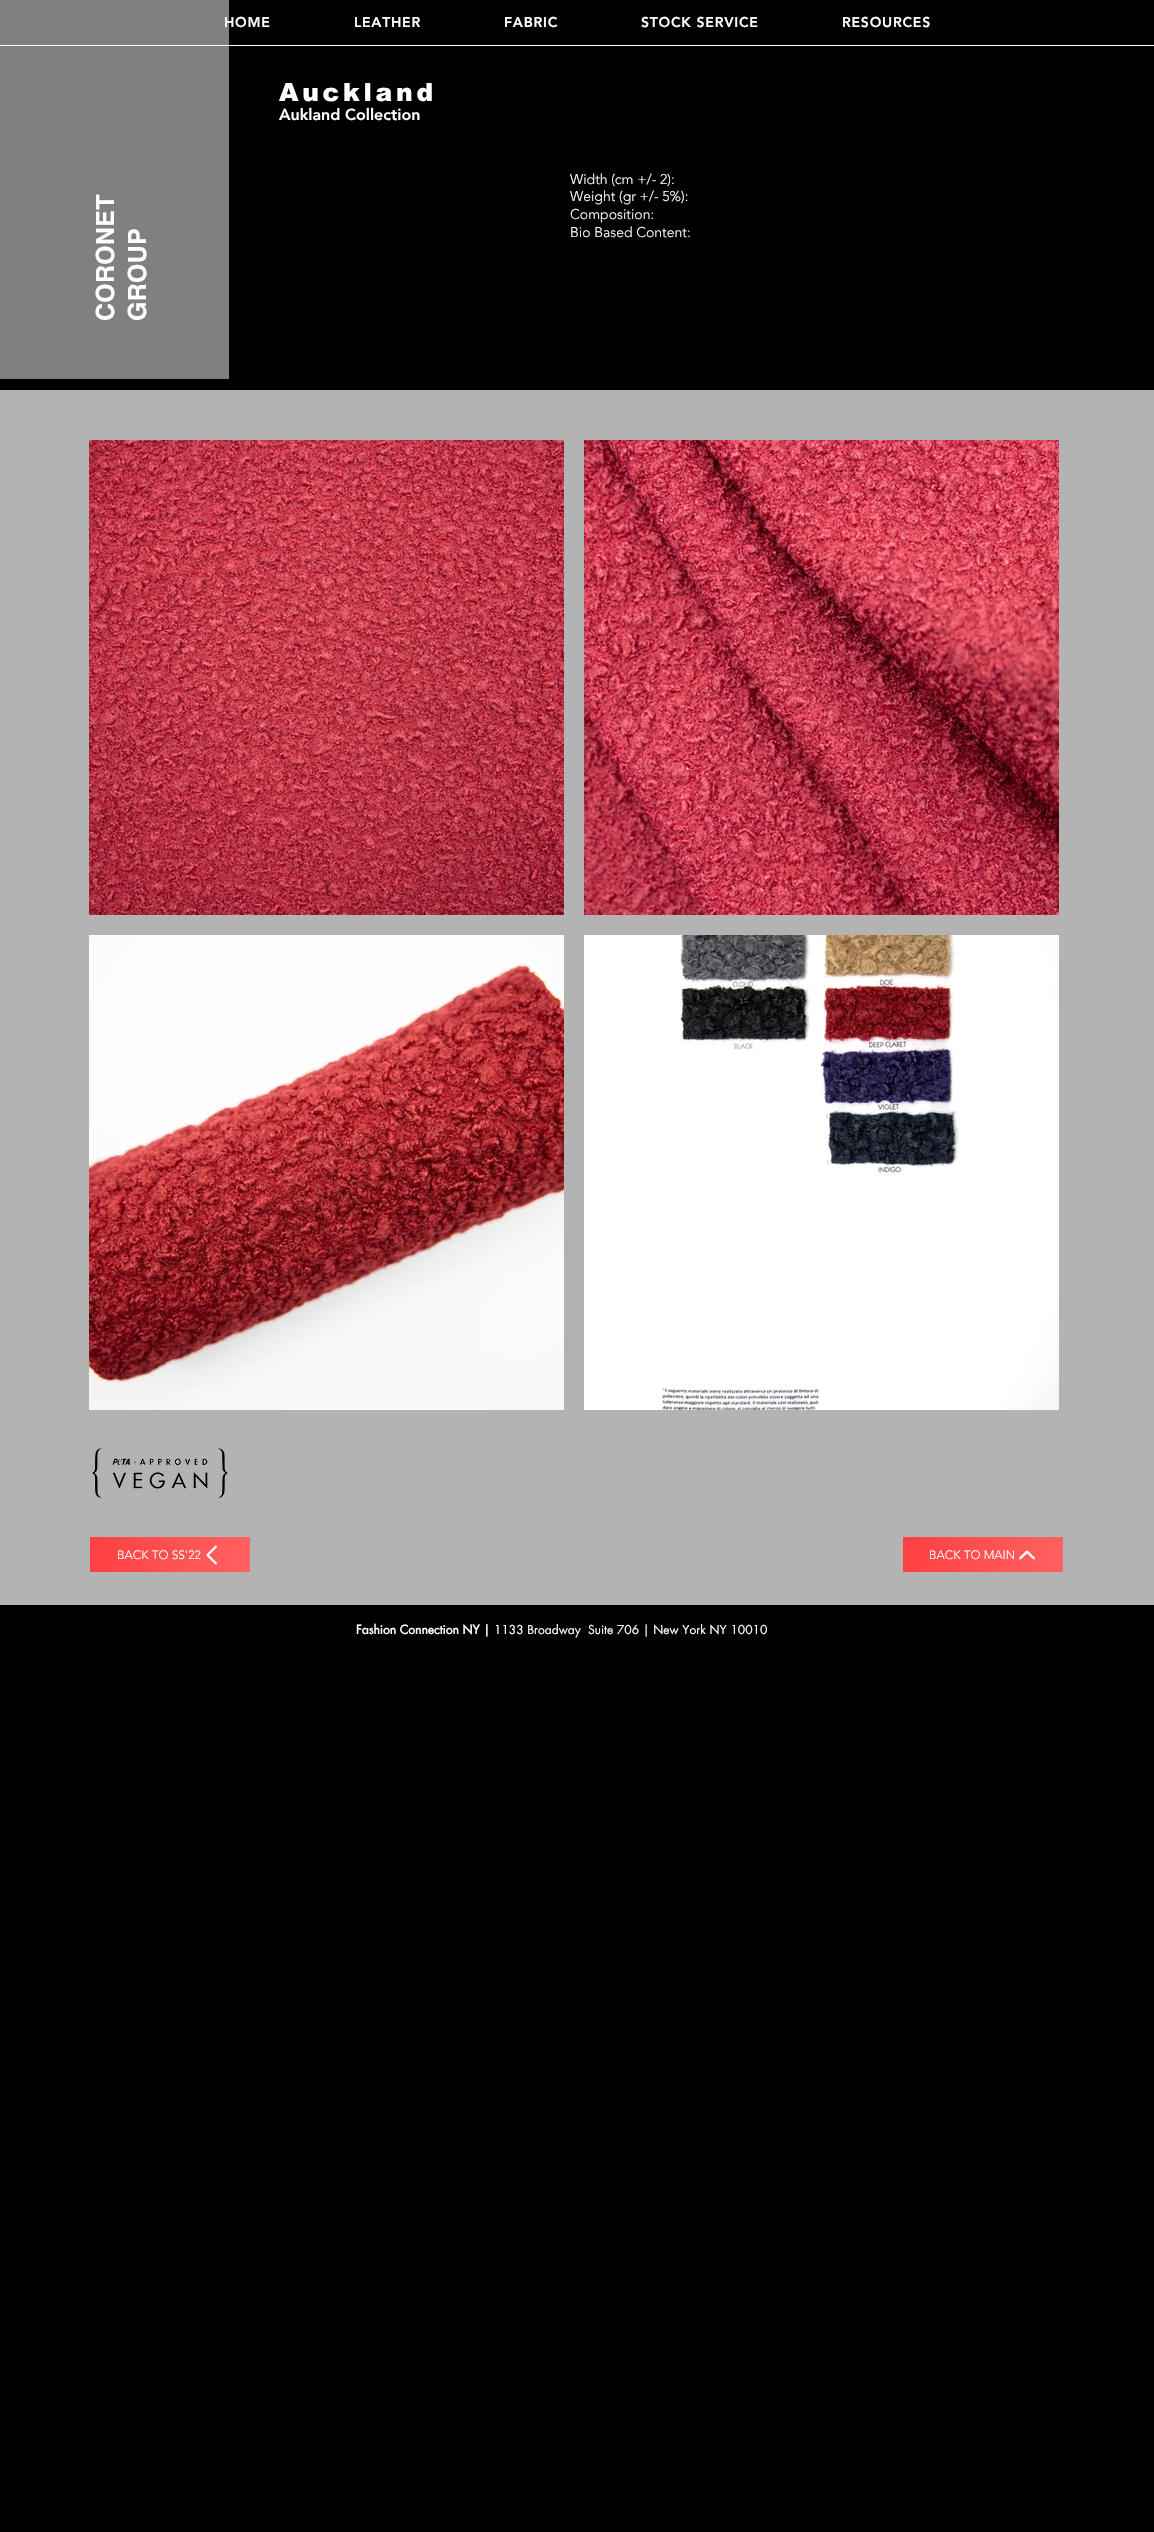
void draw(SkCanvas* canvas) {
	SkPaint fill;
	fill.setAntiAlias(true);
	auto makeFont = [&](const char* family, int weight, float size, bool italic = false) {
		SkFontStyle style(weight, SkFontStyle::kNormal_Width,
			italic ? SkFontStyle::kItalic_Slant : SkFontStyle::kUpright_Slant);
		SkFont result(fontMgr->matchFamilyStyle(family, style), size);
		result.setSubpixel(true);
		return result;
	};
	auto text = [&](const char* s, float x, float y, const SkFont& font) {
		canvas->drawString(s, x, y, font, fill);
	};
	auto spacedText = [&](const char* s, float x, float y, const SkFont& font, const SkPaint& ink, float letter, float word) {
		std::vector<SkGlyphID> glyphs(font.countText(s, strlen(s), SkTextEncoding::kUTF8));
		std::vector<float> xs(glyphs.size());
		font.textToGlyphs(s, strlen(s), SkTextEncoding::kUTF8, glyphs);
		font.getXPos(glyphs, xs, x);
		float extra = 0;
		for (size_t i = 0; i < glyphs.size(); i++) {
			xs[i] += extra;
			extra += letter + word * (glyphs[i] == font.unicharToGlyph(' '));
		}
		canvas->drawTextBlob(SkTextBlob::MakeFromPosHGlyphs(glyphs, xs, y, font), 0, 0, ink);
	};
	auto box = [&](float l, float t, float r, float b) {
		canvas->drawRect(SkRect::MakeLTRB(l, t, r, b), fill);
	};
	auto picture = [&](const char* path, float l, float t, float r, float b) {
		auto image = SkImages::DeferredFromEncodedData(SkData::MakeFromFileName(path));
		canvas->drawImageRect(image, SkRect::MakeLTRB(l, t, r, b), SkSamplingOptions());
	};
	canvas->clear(0xFF000000);
	fill.setColor(0xFF808080);
	box(0, 0, 229, 379);
	fill.setColor(0xFFFFFFFF);
	box(0, 45, 1154, 46);
	fill.setColor(0xFFB3B3B3);
	box(0, 390, 1154, 1605);
	picture("image0.png", 89, 440, 564, 915);
	picture("image1.png", 584, 440, 1059, 915);
	picture("image2.png", 89, 935, 564, 1410);
	picture("image3.png", 584, 935, 1059, 1410);
	picture("image4.png", 92, 1448, 228, 1498);
	{
		const SkColor colors[] = {0xFFFFFFFE, 0xFFFF4040, 0xFFFF6161};
		const float stops[] = {0, 0, 1};
		const SkPoint ends[] = {{90, 1555}, {250, 1555}};
		fill.setShader(SkGradientShader::MakeLinear(ends, colors, stops, 3, SkTileMode::kClamp));
		fill.setAlpha(255);
	}
	box(90, 1537, 250, 1572);
	picture("image5.png", 206, 1545, 217, 1565);
	{
		const SkColor colors[] = {0xFFFFFFFE, 0xFFFF4040, 0xFFFF6161};
		const float stops[] = {0, 0, 1};
		const SkPoint ends[] = {{903, 1555}, {1063, 1555}};
		fill.setShader(SkGradientShader::MakeLinear(ends, colors, stops, 3, SkTileMode::kClamp));
		fill.setAlpha(255);
	}
	box(903, 1537, 1063, 1572);
	picture("image6.png", 1019, 1550, 1035, 1560);
	auto font1 = makeFont("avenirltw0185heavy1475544", 900, 14);
	fill.setShader(nullptr);
	fill.setColor(0xFFFFFFFF);
	spacedText("HOME", 224, 27, font1, fill, 0.75f, 0);
	spacedText("LEATHER", 354, 27, font1, fill, 0.75f, 0);
	spacedText("FABRIC", 504, 27, font1, fill, 0.75f, 0);
	spacedText("STOCK SERVICE", 641, 27, font1, fill, 0.75f, 0);
	spacedText("RESOURCES", 842, 27, font1, fill, 0.75f, 0);
	auto font2 = makeFont("arial", 900, 25);
	spacedText("Auckland", 279, 101, font2, fill, 3.75f, 0);
	auto font3 = makeFont("avenirltw0185heavy1475544", 900, 16);
	text("Aukland Collection", 279, 120, font3);
	auto font4 = makeFont("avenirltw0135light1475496", 300, 14);
	text("Width (cm +/- 2):", 570, 184, font4);
	text("Weight (gr +/- 5%):", 570, 201, font4);
	text("Composition:", 570, 219, font4);
	text("Bio Based Content:", 570, 237, font4);
	auto font5 = makeFont("helvetica", 700, 25);
	canvas->save();
	canvas->rotate(-90, 114, 321);
	spacedText("CORONET", 114, 321, font5, fill, 0.25f, 0);
	canvas->restore();
	canvas->save();
	canvas->rotate(-90, 146, 321);
	spacedText("GROUP", 146, 321, font5, fill, 0.25f, 0);
	canvas->restore();
	auto font6 = makeFont("avenirltw0135light1475496", 300, 12);
	text("BACK TO SS'22", 117, 1559, font6);
	text("BACK TO MAIN", 929, 1559, font6);
	auto font7 = makeFont("futura", 700, 12);
	text("Fashion Connection NY |", 356, 1634, font7);
	auto font8 = makeFont("futura", 400, 12);
	text("1133 Broadway  Suite 706 | New York NY 10010", 494, 1634, font8);
}
